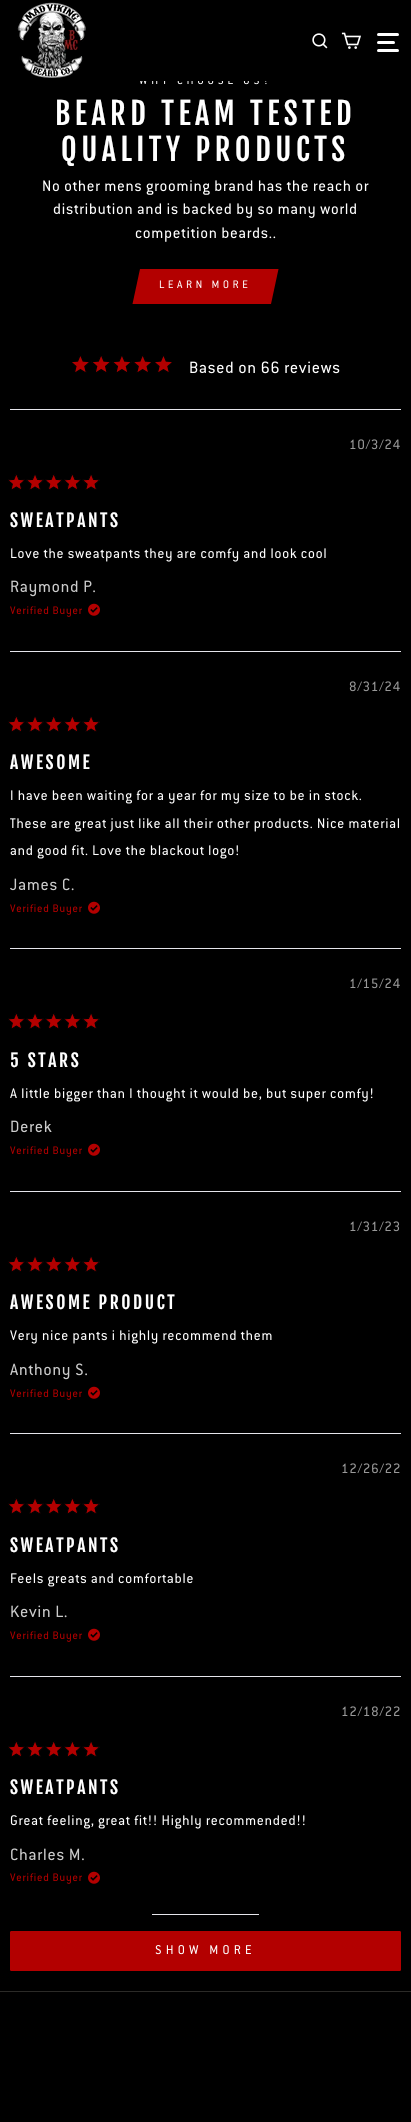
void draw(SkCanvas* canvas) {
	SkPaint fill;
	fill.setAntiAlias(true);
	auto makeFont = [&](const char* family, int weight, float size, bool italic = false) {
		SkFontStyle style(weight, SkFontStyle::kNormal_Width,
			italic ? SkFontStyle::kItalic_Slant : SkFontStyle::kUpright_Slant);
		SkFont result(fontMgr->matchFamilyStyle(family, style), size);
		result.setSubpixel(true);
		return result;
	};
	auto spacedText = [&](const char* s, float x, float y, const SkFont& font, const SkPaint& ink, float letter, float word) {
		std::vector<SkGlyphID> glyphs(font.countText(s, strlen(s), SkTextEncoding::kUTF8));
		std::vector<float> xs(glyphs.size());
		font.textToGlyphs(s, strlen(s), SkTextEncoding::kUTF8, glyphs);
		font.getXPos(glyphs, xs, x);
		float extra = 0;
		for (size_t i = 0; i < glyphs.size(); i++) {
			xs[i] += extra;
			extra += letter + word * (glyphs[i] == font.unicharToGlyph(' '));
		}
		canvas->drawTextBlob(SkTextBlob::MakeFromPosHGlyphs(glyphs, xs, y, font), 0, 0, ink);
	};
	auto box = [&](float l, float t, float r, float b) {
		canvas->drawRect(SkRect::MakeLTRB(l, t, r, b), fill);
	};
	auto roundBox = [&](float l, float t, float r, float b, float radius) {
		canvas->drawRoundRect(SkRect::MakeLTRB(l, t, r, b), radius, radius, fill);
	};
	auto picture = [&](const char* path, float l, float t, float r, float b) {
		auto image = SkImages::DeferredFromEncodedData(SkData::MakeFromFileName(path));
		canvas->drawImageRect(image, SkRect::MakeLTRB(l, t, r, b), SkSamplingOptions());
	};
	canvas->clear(0xFF000000);
	picture("image0.png", 17, 2, 86, 78);
	picture("image1.png", 312, 33, 328, 49);
	picture("image2.png", 341, 32, 361, 49);
	fill.setColor(0xFFFFFFFF);
	roundBox(377, 33, 399, 36, 1.5f);
	roundBox(377, 41, 395, 44, 1.5f);
	roundBox(377, 49, 399, 52, 1.5f);
	picture("image3.png", 140, 81, 267, 85);
	picture("image4.png", 43, 180, 369, 195);
	picture("image5.png", 53, 203, 356, 218);
	picture("image6.png", 135, 227, 276, 242);
	fill.setColor(0xFFB30000);
	box(152, 269, 259, 304);
	picture("image7.png", 159, 280, 248, 289);
	canvas->drawPath(SkPathBuilder().moveTo(140, 269).lineTo(160, 269).lineTo(152.5f, 304).lineTo(132.5f, 304).close().detach(), fill);
	canvas->drawPath(SkPathBuilder().moveTo(258.5f, 269).lineTo(278.5f, 269).lineTo(271, 304).lineTo(251, 304).close().detach(), fill);
	picture("image8.png", 72, 355, 172, 373);
	picture("image9.png", 72, 355, 172, 373);
	picture("image10.png", 190, 361, 340, 374);
	fill.setColor(0xFFE5E5EB);
	box(10, 409, 401, 410);
	picture("image11.png", 350, 439, 400, 450);
	picture("image12.png", 11, 580, 95, 597);
	picture("image13.png", 10, 606, 82, 617);
	picture("image14.png", 88, 603, 100, 616);
	picture("image15.png", 8, 474, 100, 490);
	picture("image16.png", 8, 474, 99, 490);
	picture("image17.png", 11, 548, 326, 562);
	box(10, 651, 401, 652);
	picture("image18.png", 349, 681, 400, 692);
	picture("image19.png", 10, 878, 74, 891);
	picture("image13.png", 10, 904, 82, 915);
	picture("image14.png", 88, 901, 100, 914);
	picture("image15.png", 8, 716, 100, 732);
	picture("image16.png", 8, 716, 99, 732);
	picture("image20.png", 11, 790, 361, 804);
	picture("image21.png", 10, 818, 400, 832);
	picture("image22.png", 10, 845, 238, 859);
	box(10, 948, 401, 949);
	picture("image23.png", 350, 978, 400, 989);
	picture("image24.png", 11, 1120, 52, 1133);
	picture("image13.png", 10, 1146, 82, 1157);
	picture("image14.png", 88, 1143, 100, 1156);
	picture("image15.png", 8, 1013, 100, 1029);
	picture("image16.png", 8, 1013, 99, 1029);
	picture("image25.png", 10, 1088, 373, 1102);
	box(10, 1191, 401, 1192);
	picture("image26.png", 350, 1221, 400, 1232);
	picture("image27.png", 10, 1363, 87, 1380);
	picture("image13.png", 10, 1389, 82, 1400);
	picture("image14.png", 88, 1386, 100, 1399);
	picture("image15.png", 8, 1256, 100, 1272);
	picture("image16.png", 8, 1256, 99, 1272);
	picture("image28.png", 10, 1330, 272, 1344);
	box(10, 1433, 401, 1434);
	picture("image29.png", 342, 1463, 400, 1474);
	picture("image30.png", 11, 1605, 67, 1618);
	picture("image13.png", 10, 1631, 82, 1642);
	picture("image14.png", 88, 1628, 100, 1641);
	picture("image15.png", 8, 1498, 100, 1514);
	picture("image16.png", 8, 1498, 99, 1514);
	picture("image31.png", 11, 1573, 193, 1587);
	box(10, 1676, 401, 1677);
	picture("image32.png", 342, 1706, 400, 1717);
	picture("image33.png", 11, 1848, 84, 1861);
	picture("image13.png", 10, 1873, 82, 1884);
	picture("image14.png", 88, 1871, 100, 1884);
	picture("image15.png", 8, 1741, 100, 1757);
	picture("image16.png", 8, 1741, 99, 1757);
	picture("image34.png", 10, 1815, 305, 1829);
	fill.setColor(0xFFB30000);
	canvas->drawRoundRect(SkRect::MakeLTRB(10.5f, 1931.5f, 400.5f, 1970.5f), 0.5f, 0.5f, fill);
	fill.setStyle(SkPaint::kStroke_Style);
	fill.setStrokeWidth(1);
	canvas->drawRoundRect(SkRect::MakeLTRB(10.5f, 1931.5f, 400.5f, 1970.5f), 0.5f, 0.5f, fill);
	picture("image35.png", 155, 1945, 251, 1955);
	canvas->save();
	canvas->clipRect(SkRect::MakeLTRB(10, 1874, 401, 1915));
	fill.setColor(0xFFE5E5EB);
	canvas->drawRect(SkRect::MakeLTRB(152.5f, 1914.5f, 258.5f, 1954.5f), fill);
	canvas->restore();
	fill.setStyle(SkPaint::kFill_Style);
	fill.setColor(0xFF2B2A27);
	box(0, 1991, 411, 1992);
	auto font1 = makeFont("Fjalla One", 400, 30.25f);
	fill.setColor(0xFFFFFFFF);
	spacedText("BEARD TEAM TESTED", 55, 125, font1, fill, 4.5f, 0);
	spacedText("QUALITY PRODUCTS", 61, 161, font1, fill, 4.5f, 0);
	auto font2 = makeFont("Fjalla One", 400, 17.5f);
	spacedText("SWEATPANTS", 10, 527, font2, fill, 2.6f, 0);
	spacedText("AWESOME", 10, 769, font2, fill, 2.6f, 0);
	spacedText("5 STARS", 10, 1067, font2, fill, 2.6f, 0);
	spacedText("AWESOME PRODUCT", 10, 1309, font2, fill, 2.6f, 0);
	spacedText("SWEATPANTS", 10, 1552, font2, fill, 2.6f, 0);
	spacedText("SWEATPANTS", 10, 1794, font2, fill, 2.6f, 0);
}
